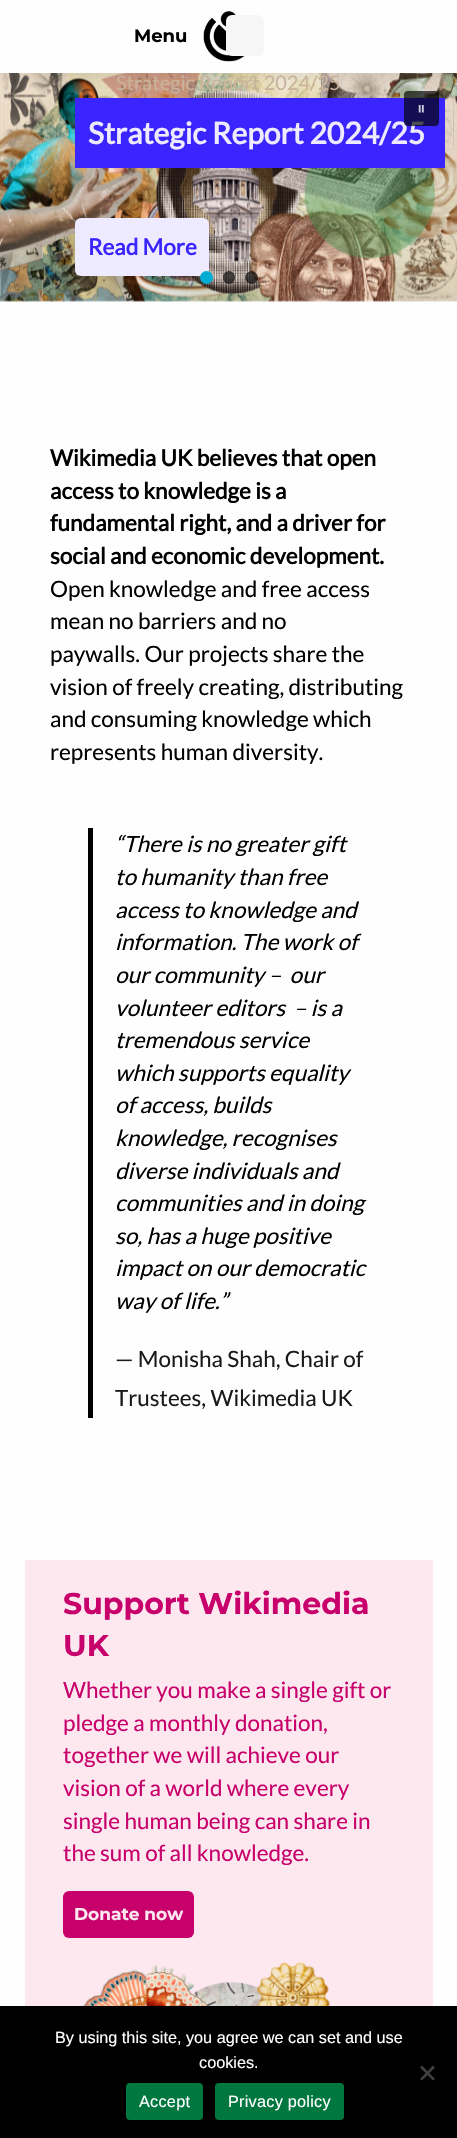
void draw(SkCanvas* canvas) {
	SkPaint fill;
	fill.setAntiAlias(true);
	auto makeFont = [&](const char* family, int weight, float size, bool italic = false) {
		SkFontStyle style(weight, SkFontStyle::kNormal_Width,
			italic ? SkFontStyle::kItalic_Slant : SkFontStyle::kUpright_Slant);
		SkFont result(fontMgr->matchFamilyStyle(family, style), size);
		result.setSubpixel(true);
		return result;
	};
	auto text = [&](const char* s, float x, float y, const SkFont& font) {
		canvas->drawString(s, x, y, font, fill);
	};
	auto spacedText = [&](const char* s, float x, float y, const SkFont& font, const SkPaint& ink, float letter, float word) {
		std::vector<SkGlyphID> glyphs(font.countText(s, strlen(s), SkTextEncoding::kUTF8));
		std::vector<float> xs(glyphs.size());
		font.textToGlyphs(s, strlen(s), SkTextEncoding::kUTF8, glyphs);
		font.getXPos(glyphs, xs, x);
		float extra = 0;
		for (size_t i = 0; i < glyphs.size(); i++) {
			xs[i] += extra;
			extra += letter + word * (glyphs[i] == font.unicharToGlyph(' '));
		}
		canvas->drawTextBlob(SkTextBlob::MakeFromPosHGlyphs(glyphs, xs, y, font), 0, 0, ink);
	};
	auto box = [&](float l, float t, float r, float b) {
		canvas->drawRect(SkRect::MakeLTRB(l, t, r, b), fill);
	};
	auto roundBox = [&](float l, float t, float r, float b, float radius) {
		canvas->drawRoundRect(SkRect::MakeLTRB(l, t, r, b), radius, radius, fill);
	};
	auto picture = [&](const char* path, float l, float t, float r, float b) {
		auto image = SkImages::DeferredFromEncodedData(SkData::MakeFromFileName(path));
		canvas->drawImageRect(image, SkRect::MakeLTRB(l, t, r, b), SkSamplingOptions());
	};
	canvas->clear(0xFFFEFEFE);
	picture("image1.png", 0, 73, 457, 302);
	fill.setColor(0x0D000000);
	fill.setMaskFilter(SkMaskFilter::MakeBlur(kNormal_SkBlurStyle, 3));
	canvas->drawRect(SkRect::MakeLTRB(0, 6, 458, 79), fill);
	fill.setMaskFilter(nullptr);
	fill.setColor(0xFFFEFEFE);
	box(0, 3, 457, 73);
	picture("image0.png", 203, 11, 245, 62);
	fill.setColor(0xFFF6F6F6);
	canvas->drawRoundRect(SkRect::MakeLTRB(227.5f, 16.5f, 262.5f, 54.5f), 4.5f, 4.5f, fill);
	fill.setStyle(SkPaint::kStroke_Style);
	fill.setStrokeWidth(3);
	canvas->drawRoundRect(SkRect::MakeLTRB(227.5f, 16.5f, 262.5f, 54.5f), 4.5f, 4.5f, fill);
	fill.setStyle(SkPaint::kFill_Style);
	fill.setColor(0xFF3A25FF);
	box(75, 98, 445, 168);
	fill.setColor(0xFFEEEAFF);
	roundBox(75, 218, 209, 276, 6);
	fill.setColor(0xFF01ADD3);
	canvas->drawCircle(206.5f, 277.5f, 6.5f, fill);
	fill.setColor(0xAB000000);
	roundBox(223, 271, 235, 284, 6);
	canvas->drawCircle(251.5f, 277.5f, 6.5f, fill);
	fill.setColor(0xFF000000);
	box(88, 828, 93, 1418);
	fill.setColor(0xFFFDE8F0);
	box(25, 1560, 433, 2006);
	fill.setColor(0xFFC7006B);
	roundBox(63, 1891, 194, 1938, 6);
	picture("image3.png", 82, 1962, 330, 2006);
	fill.setColor(0xFF000000);
	box(0, 2006, 457, 2138);
	fill.setColor(0xFF404040);
	canvas->drawPath(SkPathBuilder().moveTo(433, 2065.5f).lineTo(435, 2067.5f).lineTo(422, 2080.5f).lineTo(420, 2079).close().detach(), fill);
	canvas->drawPath(SkPathBuilder().moveTo(420, 2067.5f).lineTo(422, 2065.5f).lineTo(435, 2079).lineTo(433, 2080.5f).close().detach(), fill);
	fill.setColor(0xFF00773F);
	roundBox(126, 2083, 203, 2120, 4);
	roundBox(215, 2083, 344, 2120, 4);
	auto font1 = makeFont("Montserrat", 700, 18);
	fill.setColor(0xFF000000);
	text("Menu", 134, 42, font1);
	auto font2 = makeFont("Lato", 400, 20);
	fill.setColor(0xFFC9B39B);
	text("Strategic Report 2024/25", 116, 90, font2);
	auto font3 = makeFont("Lato", 700, 30);
	fill.setColor(0xFFEEEAFF);
	text("Strategic Report 2024/25", 88, 144, font3);
	auto font4 = makeFont("Lato", 700, 22.5f);
	fill.setColor(0xFF3A25FF);
	text("Read More", 88, 255, font4);
	fill.setColor(0xAB000000);
	roundBox(404, 91, 439, 126, 4);
	picture("image2.png", 418, 105, 424, 113);
	fill.setColor(0xFF000000);
	text("Wikimedia UK believes that open", 50, 466, font4);
	text("access to knowledge is a", 50, 499, font4);
	text("fundamental right, and a driver for", 50, 531, font4);
	text("social and economic development.", 50, 564, font4);
	auto font5 = makeFont("Lato", 400, 22.5f);
	text("Open knowledge and free access", 50, 597, font5);
	text("mean no barriers and no", 50, 629, font5);
	text("paywalls. Our projects share the", 50, 662, font5);
	text("vision of freely creating, distributing", 50, 695, font5);
	text("and consuming knowledge which", 50, 727, font5);
	text("represents human diversity.", 50, 760, font5);
	auto font6 = makeFont("Lato", 400, 22.5f, true);
	text("“There is no greater gift", 115, 852, font6);
	text("to humanity than free", 115, 885, font6);
	text("access to knowledge and", 115, 918, font6);
	text("information. The work of", 115, 950, font6);
	text("our community –  our", 115, 983, font6);
	text("volunteer editors  – is a", 115, 1016, font6);
	text("tremendous service", 115, 1048, font6);
	text("which supports equality", 115, 1081, font6);
	text("of access, builds", 115, 1113, font6);
	text("knowledge, recognises", 115, 1146, font6);
	text("diverse individuals and", 115, 1179, font6);
	text("communities and in doing", 115, 1211, font6);
	text("so, has a huge positive", 115, 1244, font6);
	text("impact on our democratic", 115, 1276, font6);
	text("way of life.”", 115, 1309, font6);
	fill.setColor(0xFF1A1A1A);
	text("— Monisha Shah, Chair of", 115, 1367, font5);
	text("Trustees, Wikimedia UK", 115, 1406, font5);
	auto font7 = makeFont("Montserrat", 700, 30);
	fill.setColor(0xFFC7006B);
	text("Support Wikimedia", 63, 1614, font7);
	text("UK", 63, 1656, font7);
	text("Whether you make a single gift or", 63, 1698, font5);
	text("pledge a monthly donation,", 63, 1731, font5);
	text("together we will achieve our", 63, 1763, font5);
	text("vision of a world where every", 63, 1796, font5);
	text("single human being can share in", 63, 1829, font5);
	text("the sum of all knowledge.", 63, 1861, font5);
	auto font8 = makeFont("Montserrat", 700, 17);
	fill.setColor(0xFFFDE8F0);
	text("Donate now", 74, 1920, font8);
	auto font9 = makeFont("Liberation Sans", 400, 16.25f);
	fill.setColor(0xFFFFFFFF);
	text("By using this site, you agree we can set and use", 55, 2043, font9);
	text("cookies.", 199, 2068, font9);
	spacedText("Accept", 139, 2107, font9, fill, 0.25f, 0);
	spacedText("Privacy policy", 228, 2107, font9, fill, 0.25f, 0);
}
